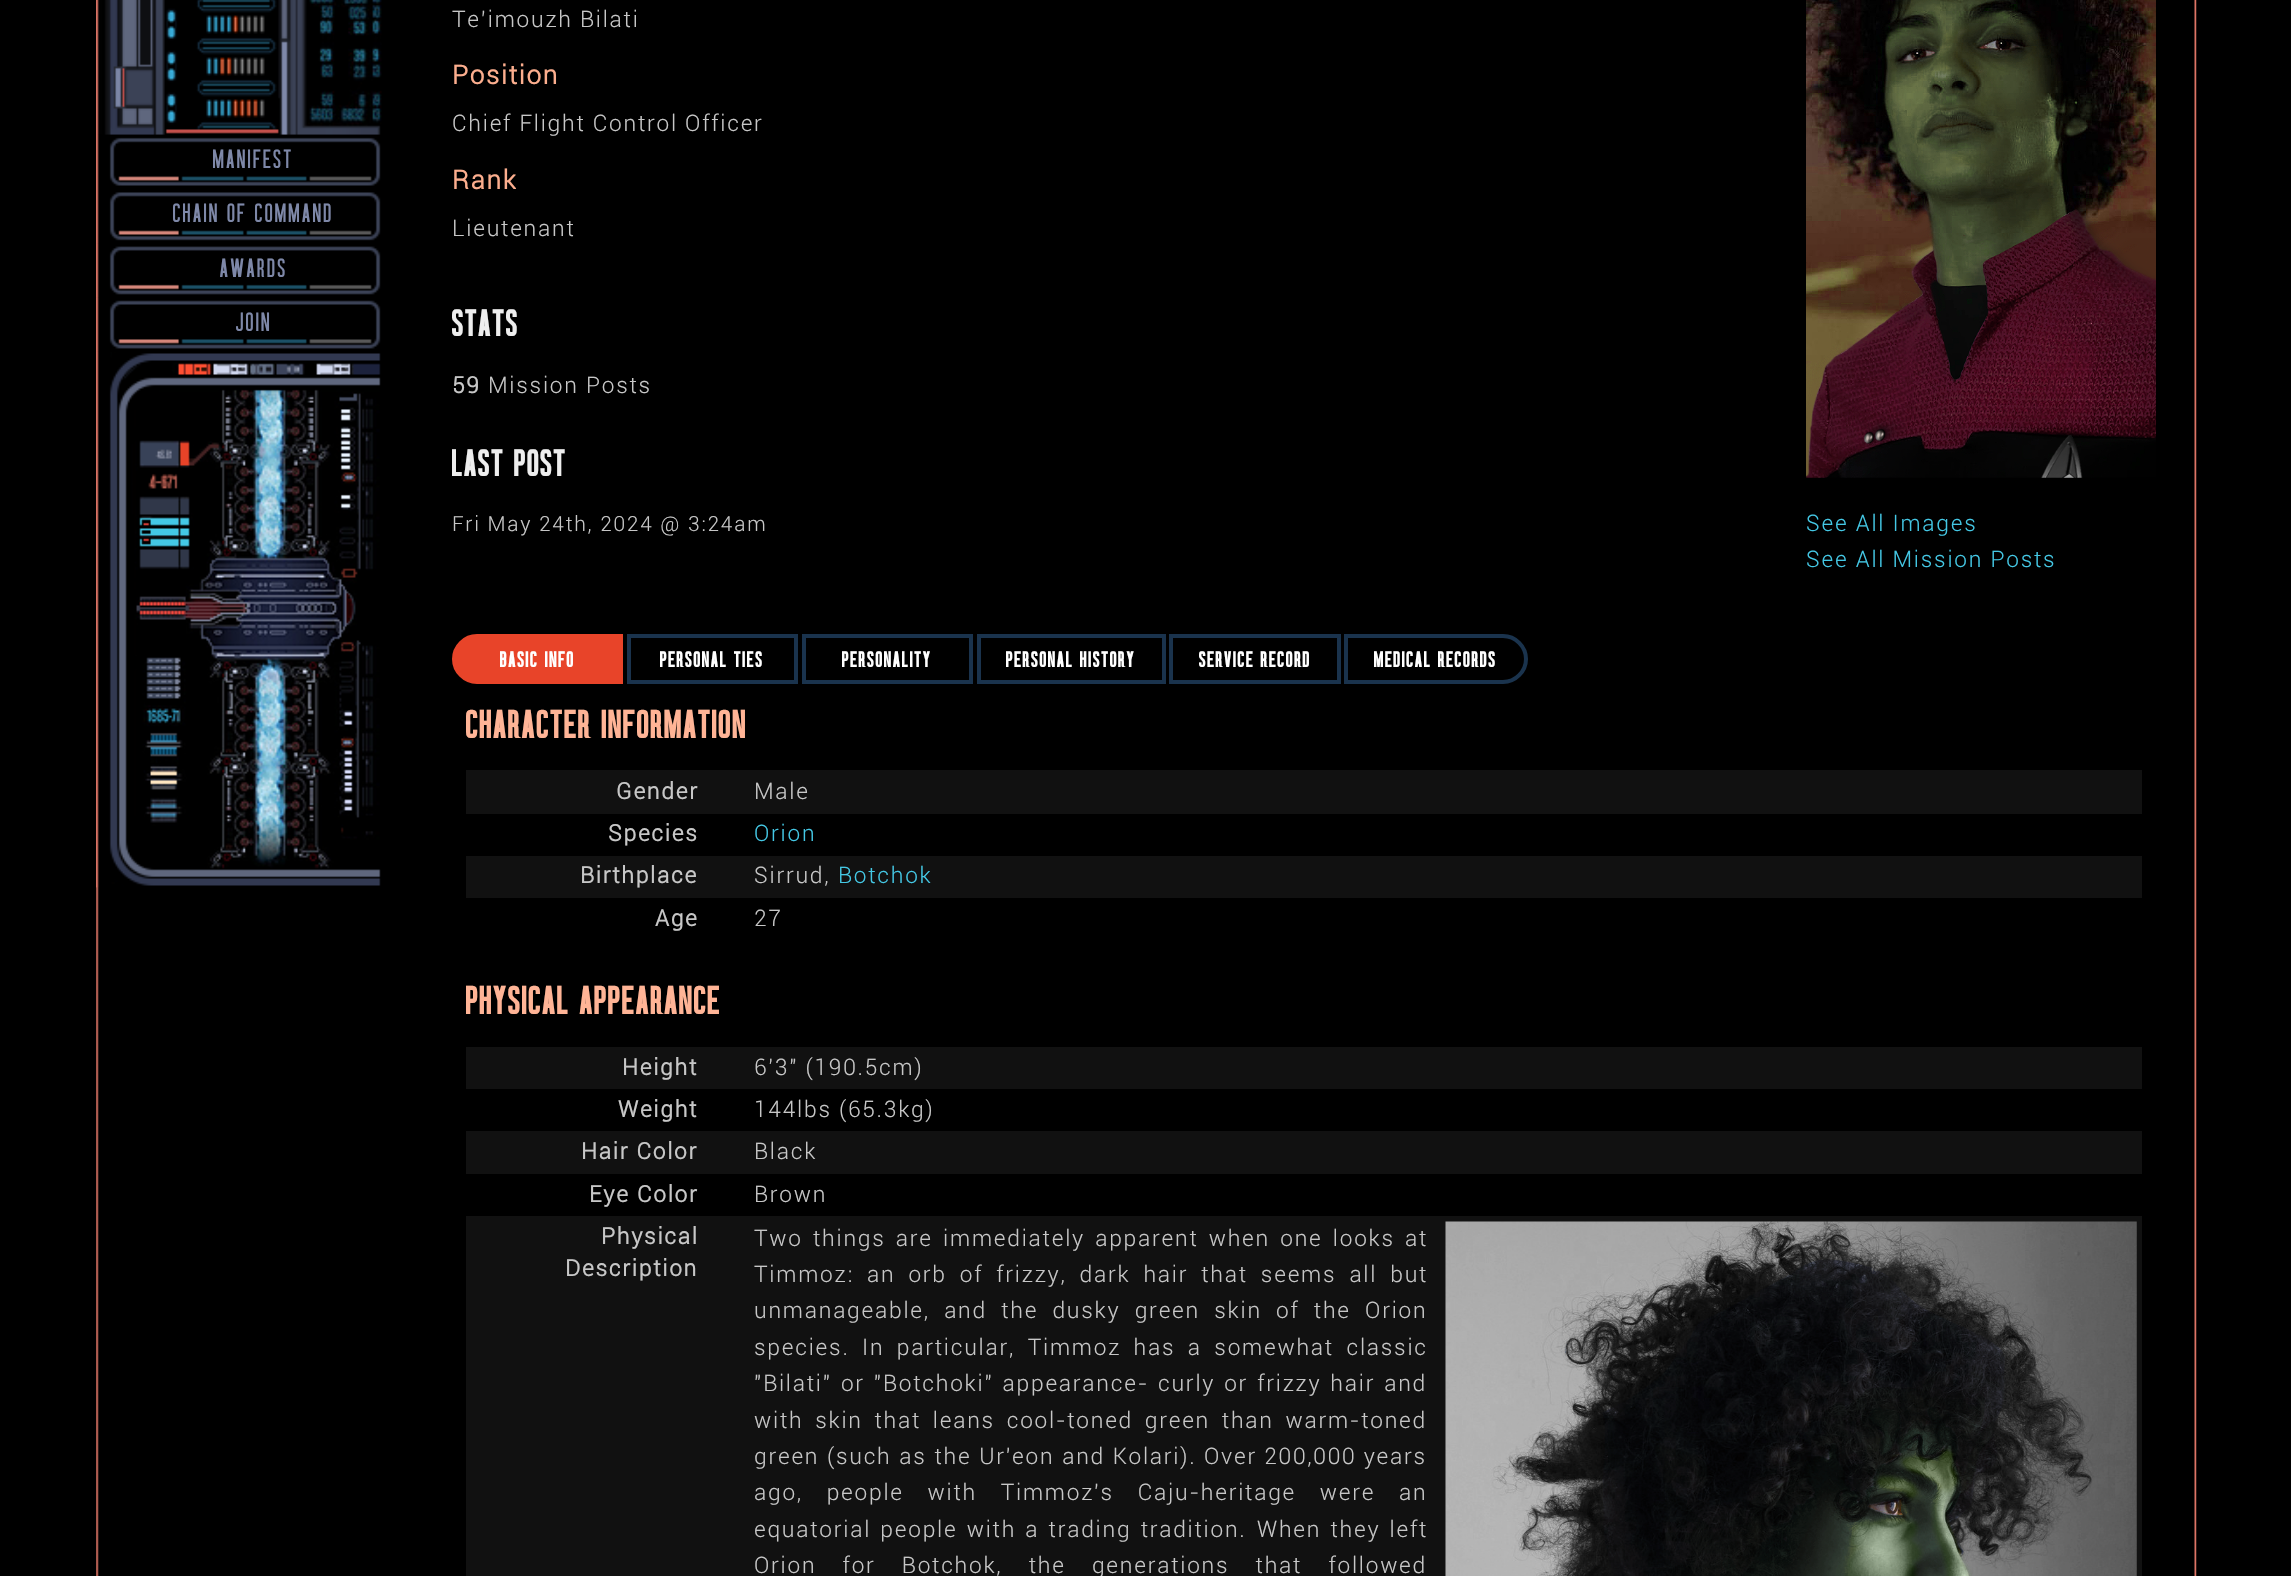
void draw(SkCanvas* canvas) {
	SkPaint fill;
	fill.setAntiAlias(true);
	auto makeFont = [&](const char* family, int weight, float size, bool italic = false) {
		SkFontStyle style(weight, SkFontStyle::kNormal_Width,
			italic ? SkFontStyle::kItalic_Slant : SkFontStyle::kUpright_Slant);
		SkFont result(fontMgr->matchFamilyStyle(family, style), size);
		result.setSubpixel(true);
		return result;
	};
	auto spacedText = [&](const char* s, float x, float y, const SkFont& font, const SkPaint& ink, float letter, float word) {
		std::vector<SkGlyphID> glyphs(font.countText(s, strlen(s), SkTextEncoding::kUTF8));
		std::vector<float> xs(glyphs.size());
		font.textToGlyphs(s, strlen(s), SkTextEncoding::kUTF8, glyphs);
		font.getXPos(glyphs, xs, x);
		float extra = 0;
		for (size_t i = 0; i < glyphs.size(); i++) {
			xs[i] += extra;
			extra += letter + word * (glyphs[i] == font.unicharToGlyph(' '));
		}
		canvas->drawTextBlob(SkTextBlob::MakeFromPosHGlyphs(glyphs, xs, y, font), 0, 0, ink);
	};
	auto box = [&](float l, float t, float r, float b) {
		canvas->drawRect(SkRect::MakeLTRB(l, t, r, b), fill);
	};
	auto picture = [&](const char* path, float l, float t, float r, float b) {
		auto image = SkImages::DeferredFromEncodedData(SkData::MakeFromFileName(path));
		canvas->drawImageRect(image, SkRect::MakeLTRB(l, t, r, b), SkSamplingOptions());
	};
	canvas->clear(0xFF000000);
	picture("image0.png", 96, 0, 2197, 1576);
	picture("image1.png", 96, 0, 97, 888);
	picture("image2.png", 96, 0, 382, 135);
	picture("image3.png", 96, 134, 381, 189);
	picture("image4.png", 96, 189, 381, 243);
	picture("image5.png", 96, 243, 381, 298);
	picture("image6.png", 96, 298, 381, 352);
	picture("image7.png", 96, 352, 381, 888);
	picture("image8.png", 1806, 0, 2156, 478);
	fill.setColor(0xFFE84429);
	canvas->drawPath(SkPathBuilder().moveTo(477, 636).lineTo(621, 636).lineTo(621, 682).lineTo(477, 682).cubicTo(464.5f, 682, 454, 671.5f, 454, 659).cubicTo(454, 646.5f, 464.5f, 636, 477, 636).close().detach(), fill);
	fill.setStyle(SkPaint::kStroke_Style);
	fill.setStrokeWidth(4);
	canvas->drawPath(SkPathBuilder().moveTo(477, 636).lineTo(621, 636).lineTo(621, 682).lineTo(477, 682).cubicTo(464.5f, 682, 454, 671.5f, 454, 659).cubicTo(454, 646.5f, 464.5f, 636, 477, 636).close().detach(), fill);
	fill.setColor(0xFF1A334D);
	canvas->drawRect(SkRect::MakeLTRB(629, 636, 796, 682), fill);
	canvas->drawRect(SkRect::MakeLTRB(804, 636, 971, 682), fill);
	canvas->drawRect(SkRect::MakeLTRB(979, 636, 1164, 682), fill);
	canvas->drawRect(SkRect::MakeLTRB(1171, 636, 1339, 682), fill);
	canvas->drawPath(SkPathBuilder().moveTo(1346, 636).lineTo(1503, 636).cubicTo(1515.5f, 636, 1526, 646.5f, 1526, 659).cubicTo(1526, 671.5f, 1515.5f, 682, 1503, 682).lineTo(1346, 682).close().detach(), fill);
	fill.setStyle(SkPaint::kFill_Style);
	fill.setColor(0xFF111111);
	box(466, 770, 2142, 814);
	box(466, 856, 2142, 898);
	box(466, 1047, 2142, 1089);
	box(466, 1131, 2142, 1174);
	box(466, 1216, 2142, 1576);
	picture("image9.png", 1445, 1221, 2137, 1576);
	auto font1 = makeFont("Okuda", 400, 28);
	fill.setColor(0xFF7E88A8);
	spacedText("MANIFEST", 213, 168, font1, fill, 1.9f, 0);
	spacedText("CHAIN OF COMMAND", 173, 222, font1, fill, 1.9f, 0);
	spacedText("AWARDS", 220, 277, font1, fill, 1.9f, 0);
	spacedText("JOIN", 236, 331, font1, fill, 1.9f, 0);
	auto font2 = makeFont("Roboto", 300, 22.75f);
	fill.setColor(0xFFC7C7C7);
	spacedText("Te’imouzh Bilati", 452, 27, font2, fill, 1.75f, 0);
	auto font3 = makeFont("Roboto", 700, 26);
	fill.setColor(0xFFFCAE8E);
	spacedText("Position", 452, 84, font3, fill, 1.75f, 0);
	fill.setColor(0xFFC7C7C7);
	spacedText("Chief Flight Control Officer", 452, 131, font2, fill, 1.75f, 0);
	fill.setColor(0xFFFCAE8E);
	spacedText("Rank", 452, 189, font3, fill, 1.75f, 0);
	fill.setColor(0xFFC7C7C7);
	spacedText("Lieutenant", 452, 236, font2, fill, 1.75f, 0);
	auto font4 = makeFont("Okuda", 700, 39);
	fill.setColor(0xFFEEEEEE);
	spacedText("STATS", 452, 336, font4, fill, 1.75f, 0);
	auto font5 = makeFont("Roboto", 700, 22.75f);
	fill.setColor(0xFFC7C7C7);
	spacedText("59", 452, 393, font5, fill, 1.75f, 0);
	spacedText("Mission Posts", 488, 393, font2, fill, 1.75f, 0);
	fill.setColor(0xFFEEEEEE);
	spacedText("LAST POST", 452, 476, font4, fill, 1.75f, 0);
	auto font6 = makeFont("Roboto", 300, 20.9f);
	fill.setColor(0xFFC7C7C7);
	spacedText("Fri May 24th, 2024 @ 3:24am", 452, 531, font6, fill, 1.75f, 0);
	fill.setColor(0xFF44C8E5);
	spacedText("See All Images", 1806, 531, font2, fill, 1.75f, 0);
	spacedText("See All Mission Posts", 1806, 567, font2, fill, 1.75f, 0);
	auto font7 = makeFont("Okuda", 700, 22.75f);
	fill.setColor(0xFFFFFFFF);
	spacedText("BASIC INFO", 500, 667, font7, fill, 1.75f, 0);
	spacedText("PERSONAL TIES", 660, 667, font7, fill, 1.75f, 0);
	spacedText("PERSONALITY", 842, 667, font7, fill, 1.75f, 0);
	spacedText("PERSONAL HISTORY", 1006, 667, font7, fill, 1.75f, 0);
	spacedText("SERVICE RECORD", 1199, 667, font7, fill, 1.75f, 0);
	spacedText("MEDICAL RECORDS", 1374, 667, font7, fill, 1.75f, 0);
	auto font8 = makeFont("Okuda", 700, 41);
	fill.setColor(0xFFFFB496);
	spacedText("CHARACTER INFORMATION", 466, 738, font8, fill, 1.75f, 0);
	fill.setColor(0xFFC7C7C7);
	spacedText("Gender", 616, 799, font5, fill, 1.75f, 0);
	spacedText("Male", 754, 799, font2, fill, 1.75f, 0);
	spacedText("Species", 608, 841, font5, fill, 1.75f, 0);
	fill.setColor(0xFF44C8E5);
	spacedText("Orion", 754, 841, font2, fill, 1.75f, 0);
	fill.setColor(0xFFC7C7C7);
	spacedText("Birthplace", 580, 883, font5, fill, 1.75f, 0);
	spacedText("Sirrud,", 754, 883, font2, fill, 1.75f, 0);
	fill.setColor(0xFF44C8E5);
	spacedText("Botchok", 838, 883, font2, fill, 1.75f, 0);
	fill.setColor(0xFFC7C7C7);
	spacedText("Age", 655, 926, font5, fill, 1.75f, 0);
	spacedText("27", 754, 926, font2, fill, 1.75f, 0);
	fill.setColor(0xFFFFB496);
	spacedText("PHYSICAL APPEARANCE", 466, 1014, font8, fill, 1.75f, 0);
	fill.setColor(0xFFC7C7C7);
	spacedText("Height", 622, 1075, font5, fill, 1.75f, 0);
	spacedText("6'3\" (190.5cm)", 754, 1075, font2, fill, 1.75f, 0);
	spacedText("Weight", 618, 1117, font5, fill, 1.75f, 0);
	spacedText("144lbs (65.3kg)", 754, 1117, font2, fill, 1.75f, 0);
	spacedText("Hair Color", 581, 1159, font5, fill, 1.75f, 0);
	spacedText("Black", 754, 1159, font2, fill, 1.75f, 0);
	spacedText("Eye Color", 589, 1202, font5, fill, 1.75f, 0);
	spacedText("Brown", 754, 1202, font2, fill, 1.75f, 0);
	spacedText("Physical", 601, 1244, font5, fill, 1.75f, 0);
	spacedText("Description", 565, 1276, font5, fill, 1.75f, 0);
	spacedText("Two things are immediately apparent when one looks at", 754, 1246, font2, fill, 1.75f, 3);
	spacedText("Timmoz: an orb of frizzy, dark hair that seems all but", 754, 1282, font2, fill, 1.75f, 5.75f);
	spacedText("unmanageable, and the dusky green skin of the Orion", 754, 1318, font2, fill, 1.75f, 7);
	spacedText("species.", 754, 1355, font2, fill, 1.75f, 0);
	spacedText("In particular, Timmoz has a somewhat classic", 862, 1355, font2, fill, 1.75f, 5.25f);
	spacedText("\"Bilati\" or \"Botchoki\" appearance- curly or frizzy hair and", 754, 1391, font2, fill, 1.75f, 1.75f);
	spacedText("with skin that leans cool-toned green than warm-toned", 754, 1428, font2, fill, 1.75f, 4.5f);
	spacedText("green (such as the Ur'eon and Kolari).", 754, 1464, font2, fill, 1.75f, 0.5f);
	spacedText("Over 200,000 years", 1204, 1464, font2, fill, 1.75f, 0);
	spacedText("ago, people with Timmoz's Caju-heritage were an", 754, 1500, font2, fill, 1.75f, 16.5f);
	spacedText("equatorial people with a trading tradition.", 754, 1537, font2, fill, 1.75f, 2);
	spacedText("When they left", 1257, 1537, font2, fill, 1.75f, 2);
	spacedText("Orion for Botchok, the generations that followed", 754, 1573, font2, fill, 1.75f, 19);
}
